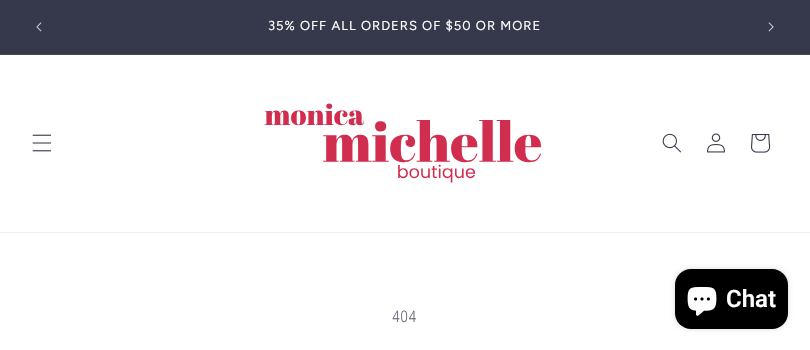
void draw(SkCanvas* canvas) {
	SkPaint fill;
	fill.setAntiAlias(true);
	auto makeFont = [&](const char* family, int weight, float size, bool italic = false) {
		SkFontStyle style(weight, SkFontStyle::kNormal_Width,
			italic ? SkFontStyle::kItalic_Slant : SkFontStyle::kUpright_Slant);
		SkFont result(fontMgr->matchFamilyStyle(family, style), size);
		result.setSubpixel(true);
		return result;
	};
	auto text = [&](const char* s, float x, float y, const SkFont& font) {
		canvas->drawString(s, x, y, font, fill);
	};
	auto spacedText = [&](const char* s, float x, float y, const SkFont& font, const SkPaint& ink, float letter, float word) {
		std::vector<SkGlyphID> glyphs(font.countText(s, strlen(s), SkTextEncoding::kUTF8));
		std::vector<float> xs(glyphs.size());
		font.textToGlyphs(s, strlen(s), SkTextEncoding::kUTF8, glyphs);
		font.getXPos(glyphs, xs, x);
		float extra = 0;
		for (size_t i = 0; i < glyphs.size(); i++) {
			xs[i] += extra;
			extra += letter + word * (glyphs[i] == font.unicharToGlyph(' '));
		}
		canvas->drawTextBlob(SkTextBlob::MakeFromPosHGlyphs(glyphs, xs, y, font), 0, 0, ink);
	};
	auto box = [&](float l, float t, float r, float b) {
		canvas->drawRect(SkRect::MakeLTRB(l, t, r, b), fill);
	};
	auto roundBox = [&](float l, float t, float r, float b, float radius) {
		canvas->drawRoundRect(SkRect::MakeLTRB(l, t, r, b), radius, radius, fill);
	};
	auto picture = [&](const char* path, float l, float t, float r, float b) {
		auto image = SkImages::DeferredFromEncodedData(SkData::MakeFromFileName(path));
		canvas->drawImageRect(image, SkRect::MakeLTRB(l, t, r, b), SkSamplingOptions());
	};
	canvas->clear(0xFFFFFFFF);
	fill.setColor(0xFF36384C);
	box(0, 0, 810, 54);
	fill.setColor(0xFF46485A);
	box(0, 54, 810, 55);
	picture("image0.png", 36, 22, 42, 32);
	picture("image1.png", 768, 22, 774, 32);
	fill.setColor(0xFFEFEFF1);
	box(0, 232, 810, 233);
	picture("image2.png", 32, 134, 52, 152);
	picture("image3.png", 264, 103, 541, 183);
	picture("image4.png", 662, 133, 681, 153);
	picture("image5.png", 707, 133, 725, 153);
	picture("image6.png", 751, 134, 771, 153);
	fill.setColor(0x26000000);
	fill.setMaskFilter(SkMaskFilter::MakeBlur(kNormal_SkBlurStyle, 2.5f));
	canvas->drawRoundRect(SkRect::MakeLTRB(675, 269, 788, 329), 16, 16, fill);
	fill.setMaskFilter(nullptr);
	fill.setColor(0xFF000000);
	roundBox(675, 269, 788, 329, 16);
	picture("image7.png", 687, 287, 717, 316);
	auto font1 = makeFont("Figtree", 400, 13);
	fill.setColor(0xFFFFFFFF);
	spacedText("35% OFF ALL ORDERS OF $50 OR MORE", 268, 30, font1, fill, 1, 0);
	auto font2 = makeFont("Roboto", 600, 24);
	text("Chat", 726, 307, font2);
	auto font3 = makeFont("Roboto Condensed", 300, 16);
	fill.setColor(0xFF686A79);
	spacedText("404", 392, 322, font3, fill, 0.5f, 0);
}
